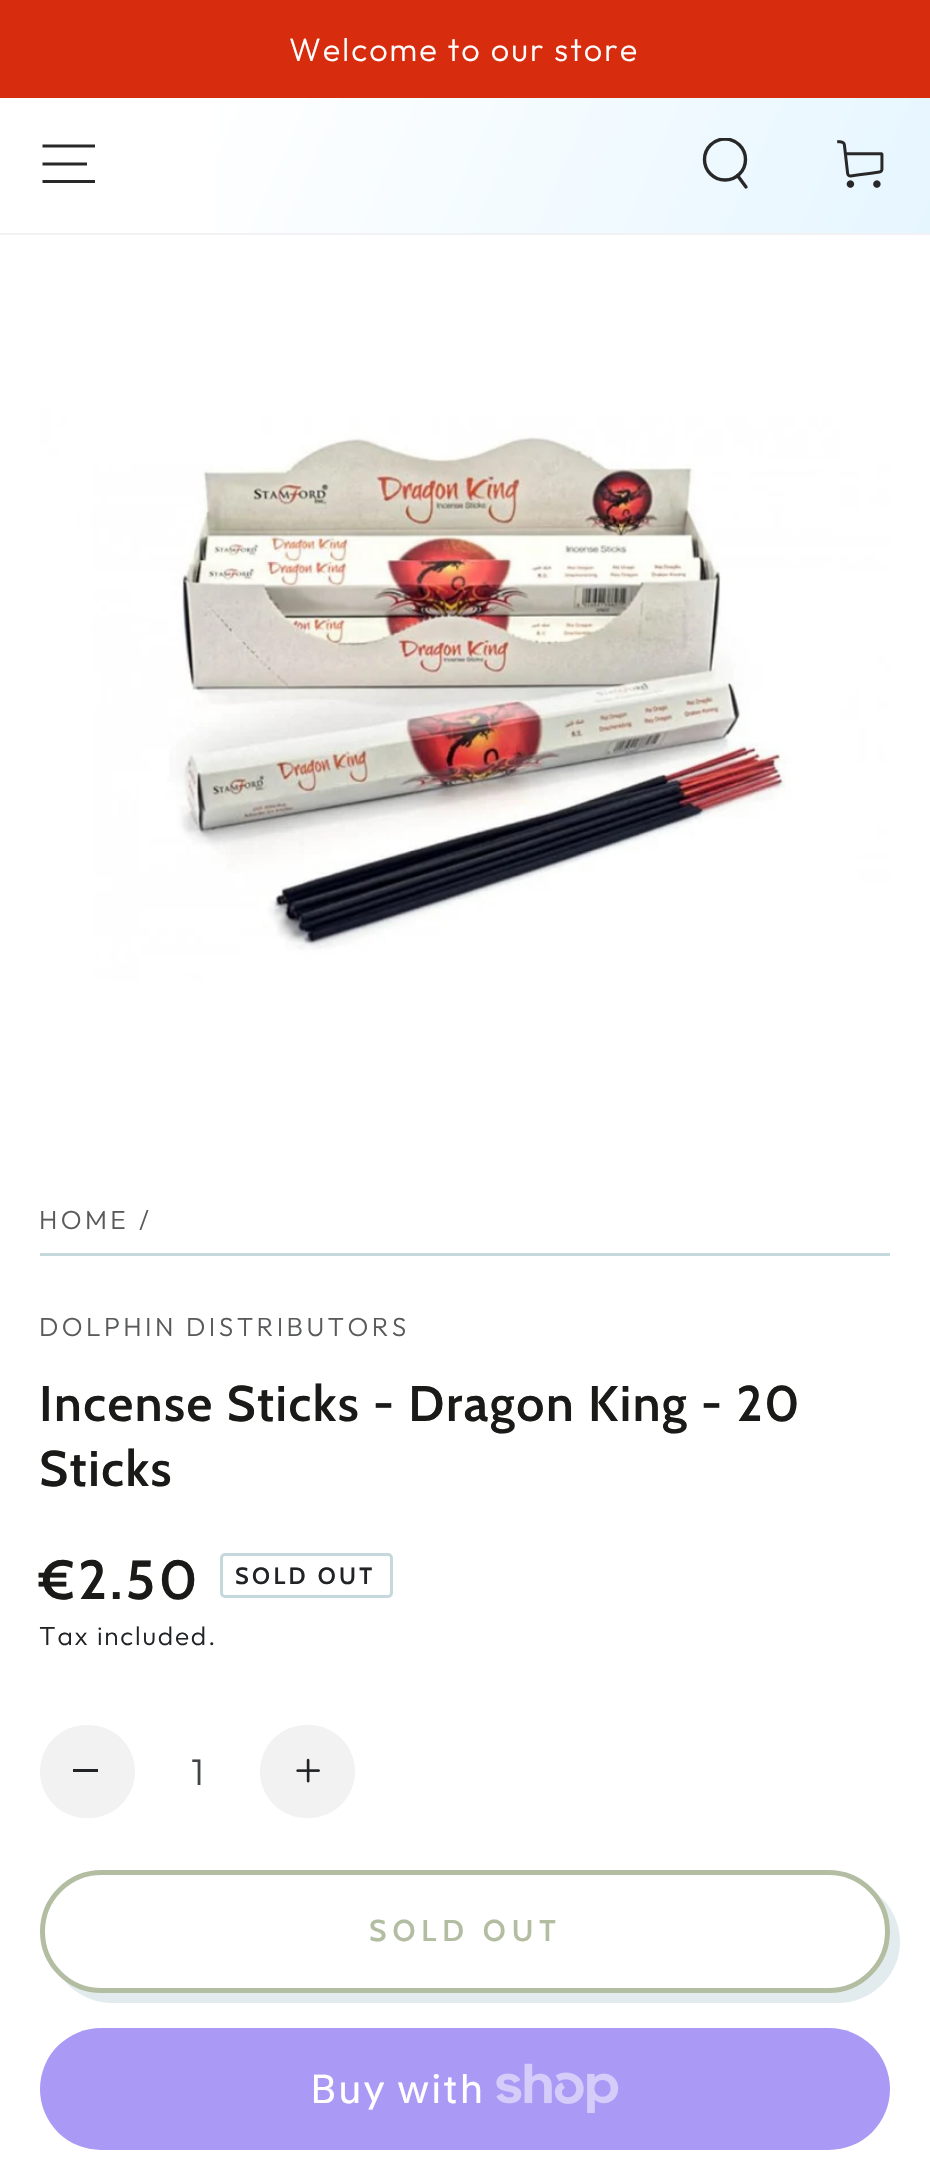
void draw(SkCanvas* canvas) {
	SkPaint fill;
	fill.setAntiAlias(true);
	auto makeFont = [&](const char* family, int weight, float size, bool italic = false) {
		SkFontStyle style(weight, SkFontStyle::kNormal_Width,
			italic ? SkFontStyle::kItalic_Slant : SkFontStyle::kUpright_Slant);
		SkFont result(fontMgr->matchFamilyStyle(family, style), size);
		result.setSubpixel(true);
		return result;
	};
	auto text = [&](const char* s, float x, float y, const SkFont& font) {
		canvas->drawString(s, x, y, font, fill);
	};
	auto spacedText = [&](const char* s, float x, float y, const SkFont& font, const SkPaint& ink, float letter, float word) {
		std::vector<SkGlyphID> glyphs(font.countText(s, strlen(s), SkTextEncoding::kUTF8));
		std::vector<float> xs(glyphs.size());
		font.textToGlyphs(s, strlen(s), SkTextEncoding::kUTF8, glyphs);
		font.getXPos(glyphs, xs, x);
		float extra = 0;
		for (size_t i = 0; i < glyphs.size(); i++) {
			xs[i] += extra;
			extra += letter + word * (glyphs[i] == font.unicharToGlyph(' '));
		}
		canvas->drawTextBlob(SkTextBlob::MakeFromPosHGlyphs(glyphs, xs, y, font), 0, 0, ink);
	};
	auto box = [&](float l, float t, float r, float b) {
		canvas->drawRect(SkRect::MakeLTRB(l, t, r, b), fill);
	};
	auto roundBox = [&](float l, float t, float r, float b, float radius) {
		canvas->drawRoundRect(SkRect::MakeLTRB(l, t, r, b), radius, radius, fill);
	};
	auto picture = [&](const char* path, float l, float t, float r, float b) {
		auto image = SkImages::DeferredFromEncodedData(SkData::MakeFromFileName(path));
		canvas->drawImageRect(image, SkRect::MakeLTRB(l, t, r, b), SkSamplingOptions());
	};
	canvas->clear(0xFFFFFFFF);
	fill.setColor(0xFFD72C0D);
	box(0, 0, 930, 98);
	fill.setColor(0xFFF2F2F4);
	box(0, 233, 930, 235);
	{
		const SkColor colors[] = {0xFFFFFFFF, 0xFFE6F6FF};
		const float stops[] = {0.2f, 1};
		const SkPoint ends[] = {{52, -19}, {878, 349}};
		fill.setShader(SkGradientShader::MakeLinear(ends, colors, stops, 2, SkTileMode::kClamp));
		fill.setAlpha(255);
	}
	box(217, 98, 930, 233);
	fill.setStyle(SkPaint::kStroke_Style);
	fill.setStrokeWidth(3);
	fill.setShader(nullptr);
	fill.setColor(0xFF282828);
	canvas->drawPath(SkPathBuilder().moveTo(42.5f, 181.5f).lineTo(95, 181.5f).moveTo(42.5f, 164).lineTo(87, 164).moveTo(42.5f, 146).lineTo(95, 146).detach(), fill);
	canvas->save();
	canvas->clipRect(SkRect::MakeLTRB(700, 138, 753, 190));
	fill.setStrokeWidth(3.4f);
	canvas->drawCircle(725, 159.5f, 20.5f, fill);
	canvas->restore();
	fill.setStrokeCap(SkPaint::kRound_Cap);
	canvas->drawPath(SkPathBuilder().moveTo(737.5f, 175.5f).lineTo(746, 187).detach(), fill);
	picture("image0.png", 837, 140, 884, 188);
	picture("image1.png", 40, 273, 890, 1123);
	fill.setStyle(SkPaint::kFill_Style);
	fill.setColor(0xFFC5D9DD);
	box(40, 1253, 890, 1256);
	fill.setStyle(SkPaint::kStroke_Style);
	fill.setStrokeWidth(3);
	fill.setStrokeCap(SkPaint::kButt_Cap);
	canvas->drawRoundRect(SkRect::MakeLTRB(221.5f, 1554.5f, 391.5f, 1596.5f), 3.5f, 3.5f, fill);
	fill.setStyle(SkPaint::kFill_Style);
	fill.setColor(0xFFF2F2F2);
	roundBox(40, 1725, 135, 1818, 46.5f);
	fill.setColor(0xFF212326);
	box(73, 1769, 98, 1772);
	fill.setColor(0xFFF2F2F2);
	roundBox(260, 1725, 355, 1818, 46.5f);
	picture("image2.png", 296, 1758, 320, 1783);
	fill.setColor(0xFFE2ECEE);
	canvas->drawPath(SkPathBuilder().moveTo(63, 1979).cubicTo(74, 1993, 92, 2003, 112, 2003).lineTo(838, 2003).cubicTo(872, 2003, 900, 1975, 900, 1942).cubicTo(900, 1922, 891, 1905, 877, 1894).cubicTo(885, 1904, 890, 1917, 890, 1931).cubicTo(890, 1965, 863, 1992, 829, 1992).lineTo(101, 1992).cubicTo(87, 1992, 73, 1987, 63, 1979).close().detach(), fill);
	fill.setColor(0xFFFFFFFF);
	canvas->drawRoundRect(SkRect::MakeLTRB(42.5f, 1872.5f, 887.5f, 1990.5f), 59, 59, fill);
	fill.setStyle(SkPaint::kStroke_Style);
	fill.setStrokeWidth(5);
	fill.setColor(0xFFB3BDA2);
	canvas->drawRoundRect(SkRect::MakeLTRB(42.5f, 1872.5f, 887.5f, 1990.5f), 59, 59, fill);
	fill.setStyle(SkPaint::kFill_Style);
	fill.setColor(0xFFAA99F5);
	roundBox(40, 2028, 890, 2150, 61);
	picture("image3.png", 496, 2063, 619, 2113);
	auto font1 = makeFont("Outfit", 300, 32.5f);
	fill.setColor(0xFFFFFFFF);
	spacedText("Welcome to our store", 289, 61, font1, fill, 2, 0);
	auto font2 = makeFont("Outfit", 300, 26.25f);
	fill.setColor(0xFF595A5C);
	spacedText("HOME", 39, 1229, font2, fill, 3.4f, 0);
	spacedText("/", 139, 1229, font2, fill, 3.4f, 0);
	spacedText("DOLPHIN DISTRIBUTORS", 39, 1336, font2, fill, 3.4f, 0);
	auto font3 = makeFont("Cabin", 600, 50);
	fill.setColor(0xFF1A1B18);
	spacedText("Incense Sticks - Dragon King - 20", 39, 1421, font3, fill, 1.5f, 0);
	spacedText("Sticks", 39, 1486, font3, fill, 1.5f, 0);
	auto font4 = makeFont("Cabin", 600, 55);
	spacedText("€2.50", 39, 1599, font4, fill, 3.4f, 0);
	auto font5 = makeFont("Cabin", 600, 23.5f);
	fill.setColor(0xFF212326);
	spacedText("SOLD OUT", 235, 1584, font5, fill, 3.4f, 0);
	spacedText("Tax included.", 39, 1645, font2, fill, 1.8f, 0);
	auto font6 = makeFont("Outfit", 300, 37);
	fill.setColor(0xFF424447);
	text("1", 191, 1785, font6);
	auto font7 = makeFont("Cabin", 600, 30);
	fill.setColor(0xFFB3BDA2);
	spacedText("SOLD OUT", 369, 1941, font7, fill, 6, 0);
	auto font8 = makeFont("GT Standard", 400, 40);
	fill.setColor(0xFFFFFFFF);
	spacedText("Buy with", 310, 2103, font8, fill, 1.5f, 0);
}
